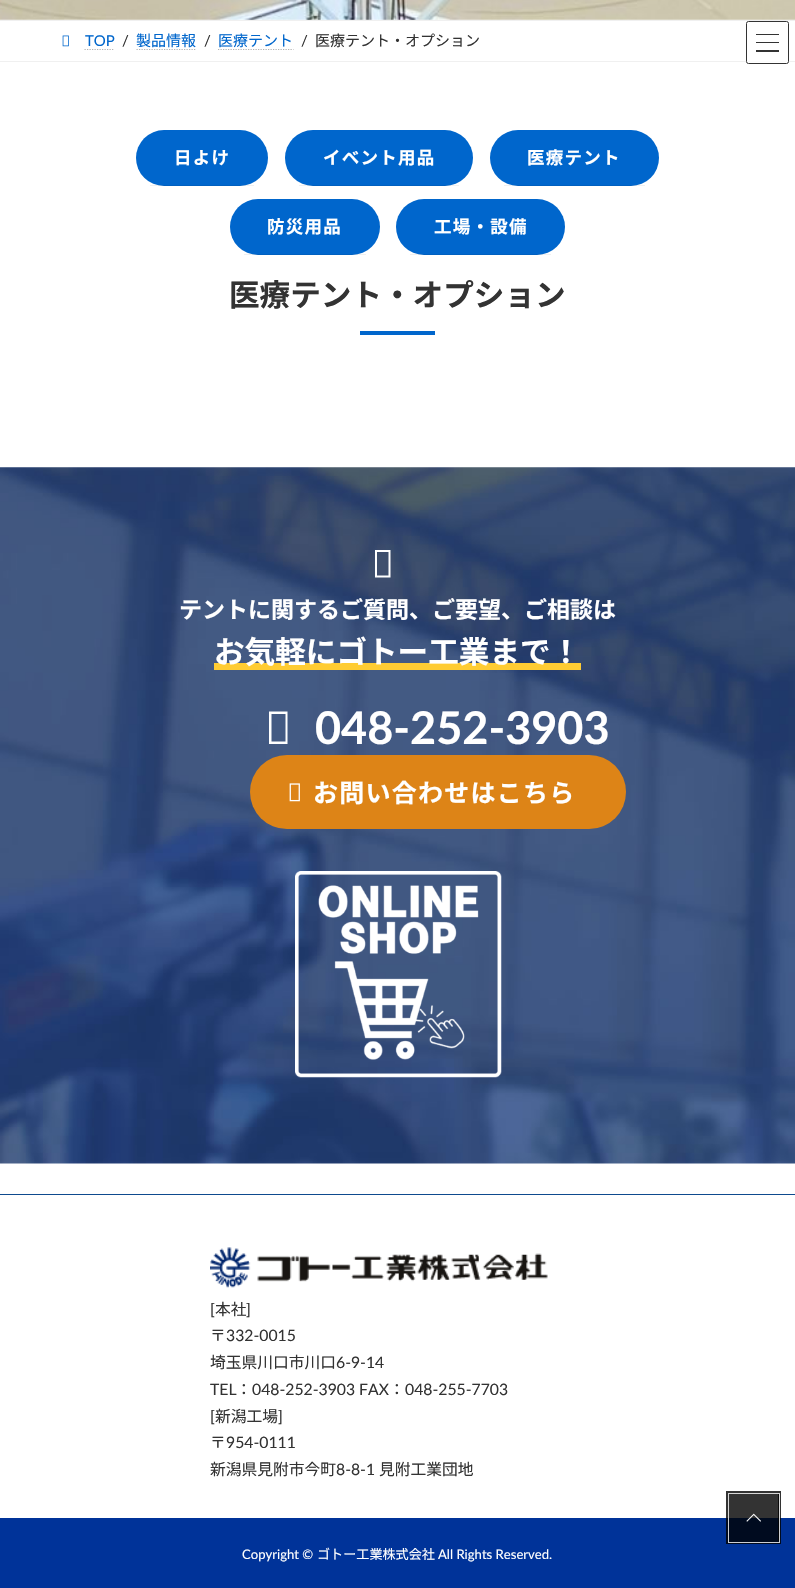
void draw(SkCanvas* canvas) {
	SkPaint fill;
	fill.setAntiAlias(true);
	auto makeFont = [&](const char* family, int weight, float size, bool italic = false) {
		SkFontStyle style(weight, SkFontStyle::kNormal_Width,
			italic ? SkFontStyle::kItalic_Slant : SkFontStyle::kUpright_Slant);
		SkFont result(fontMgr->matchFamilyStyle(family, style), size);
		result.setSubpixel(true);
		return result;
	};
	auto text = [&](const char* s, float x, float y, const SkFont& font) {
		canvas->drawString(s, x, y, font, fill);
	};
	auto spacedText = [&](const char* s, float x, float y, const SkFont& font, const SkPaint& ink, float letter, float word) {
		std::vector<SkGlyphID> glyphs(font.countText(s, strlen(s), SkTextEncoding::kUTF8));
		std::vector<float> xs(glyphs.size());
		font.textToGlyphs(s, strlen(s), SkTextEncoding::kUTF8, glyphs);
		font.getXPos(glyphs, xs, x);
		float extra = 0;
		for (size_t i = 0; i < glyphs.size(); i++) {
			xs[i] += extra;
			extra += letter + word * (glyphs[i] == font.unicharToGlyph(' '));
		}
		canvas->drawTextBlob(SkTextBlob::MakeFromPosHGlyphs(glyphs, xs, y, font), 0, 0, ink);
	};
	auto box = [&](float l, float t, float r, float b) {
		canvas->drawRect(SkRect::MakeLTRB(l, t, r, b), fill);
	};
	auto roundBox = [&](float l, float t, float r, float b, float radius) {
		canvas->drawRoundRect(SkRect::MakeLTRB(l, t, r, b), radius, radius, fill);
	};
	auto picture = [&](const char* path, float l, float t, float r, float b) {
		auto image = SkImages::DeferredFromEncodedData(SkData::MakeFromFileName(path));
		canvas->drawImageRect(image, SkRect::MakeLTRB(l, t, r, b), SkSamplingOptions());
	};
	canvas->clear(0xFFFFFFFF);
	picture("image0.png", 0, 0, 795, 20);
	fill.setColor(0xFFF0F0F0);
	box(0, 20, 795, 21);
	box(0, 61, 795, 62);
	picture("image1.png", 62, 35, 69, 47);
	fill.setStyle(SkPaint::kStroke_Style);
	fill.setStrokeWidth(1.2f);
	fill.setColor(0xFFB3B3B3);
	fill.setPathEffect(SkDashPathEffect::Make({{1.25f, 1.25f}}, 0));
	canvas->drawPath(SkPathBuilder().moveTo(84.5f, 49.5f).lineTo(114.5f, 49.5f).detach(), fill);
	fill.setPathEffect(nullptr);
	fill.setPathEffect(SkDashPathEffect::Make({{1.25f, 1.25f}}, 0));
	canvas->drawPath(SkPathBuilder().moveTo(136.5f, 49.5f).lineTo(196.5f, 49.5f).detach(), fill);
	fill.setPathEffect(nullptr);
	fill.setPathEffect(SkDashPathEffect::Make({{1.25f, 1.25f}}, 0));
	canvas->drawPath(SkPathBuilder().moveTo(218, 49.5f).lineTo(293.5f, 49.5f).detach(), fill);
	fill.setPathEffect(nullptr);
	fill.setStyle(SkPaint::kFill_Style);
	fill.setColor(0xCCFFFFFF);
	roundBox(746, 21, 789, 64, 2.5f);
	fill.setColor(0xFF333333);
	box(756, 34, 779, 35);
	box(756, 42, 779, 43);
	box(756, 50, 779, 52);
	fill.setStyle(SkPaint::kStroke_Style);
	fill.setStrokeWidth(1);
	canvas->drawRoundRect(SkRect::MakeLTRB(746.5f, 21.5f, 788.5f, 63.5f), 2, 2, fill);
	fill.setStyle(SkPaint::kFill_Style);
	fill.setColor(0xFF0066CC);
	roundBox(136, 130, 268, 186, 28);
	fill.setColor(0x0F000000);
	box(150, 185, 254, 186);
	fill.setColor(0xFF0066CC);
	roundBox(285, 130, 473, 186, 28);
	fill.setColor(0x0F000000);
	box(299, 185, 459, 186);
	fill.setColor(0xFF0066CC);
	roundBox(490, 130, 659, 186, 28);
	fill.setColor(0x0F000000);
	box(504, 185, 645, 186);
	fill.setColor(0xFF0066CC);
	roundBox(230, 199, 380, 255, 28);
	fill.setColor(0x0F000000);
	box(244, 254, 366, 255);
	fill.setColor(0xFF0066CC);
	roundBox(396, 199, 565, 255, 28);
	fill.setColor(0x0F000000);
	box(410, 254, 551, 255);
	fill.setColor(0xFF0066CC);
	box(360, 331, 435, 335);
	picture("image2.png", 0, 467, 795, 1164);
	fill.setColor(0xFFFFFFFF);
	canvas->drawPath(SkPathBuilder().moveTo(375, 577.5f).lineTo(375, 550).lineTo(390.5f, 550).lineTo(390.5f, 577.5f).close().moveTo(377, 575.5f).lineTo(388.5f, 575.5f).lineTo(388.5f, 552).lineTo(377, 552).close().detach(), fill);
	fill.setColor(0xFFFFCC33);
	box(214, 663, 581, 670);
	fill.setColor(0xFFFFFFFF);
	canvas->drawPath(SkPathBuilder().moveTo(269, 744).lineTo(269, 711.5f).lineTo(287.5f, 711.5f).lineTo(287.5f, 744).close().moveTo(271.5f, 741.5f).lineTo(285.5f, 741.5f).lineTo(285.5f, 714).lineTo(271.5f, 714).close().detach(), fill);
	fill.setColor(0xFFDD8417);
	roundBox(250, 755, 626, 829, 37);
	picture("image3.png", 289, 783, 300, 802);
	picture("image4.png", 295, 871, 502, 1078);
	fill.setColor(0xFF0E4A8E);
	box(0, 1194, 795, 1195);
	picture("image5.png", 210, 1247, 548, 1288);
	fill.setColor(0xFF003399);
	box(0, 1518, 795, 1588);
	fill.setStyle(SkPaint::kStroke_Style);
	fill.setStrokeWidth(3);
	fill.setColor(0xCC000000);
	canvas->drawRect(SkRect::MakeLTRB(727.5f, 1492.5f, 779.5f, 1542.5f), fill);
	fill.setStrokeWidth(1);
	fill.setColor(0xCCFFFFFF);
	canvas->drawRect(SkRect::MakeLTRB(728.5f, 1493.5f, 779.5f, 1542.5f), fill);
	fill.setStyle(SkPaint::kFill_Style);
	fill.setColor(0xCC000000);
	box(729, 1494, 779, 1541);
	picture("image6.png", 746, 1513, 761, 1522);
	auto font1 = makeFont("Lato", 400, 15);
	fill.setColor(0xFF0066CC);
	text("TOP", 85, 46, font1);
	fill.setColor(0xFF333333);
	text("/", 122, 46, font1);
	auto font2 = makeFont("Noto Sans JP", 400, 15);
	fill.setColor(0xFF0066CC);
	text("製品情報", 136, 46, font2);
	fill.setColor(0xFF333333);
	text("/", 204, 46, font1);
	fill.setColor(0xFF0066CC);
	text("医療テント", 218, 46, font2);
	fill.setColor(0xFF333333);
	text("/", 301, 46, font1);
	text("医療テント・オプション", 315, 46, font2);
	auto font3 = makeFont("Noto Sans JP", 700, 17.5f);
	fill.setColor(0xFFFFFFFF);
	spacedText("日よけ", 174, 164, font3, fill, 1.25f, 0);
	spacedText("イベント用品", 323, 164, font3, fill, 1.25f, 0);
	spacedText("医療テント", 527, 164, font3, fill, 1.25f, 0);
	spacedText("防災用品", 267, 233, font3, fill, 1.25f, 0);
	spacedText("工場・設備", 434, 233, font3, fill, 1.25f, 0);
	auto font4 = makeFont("Noto Sans JP", 700, 30.6f);
	fill.setColor(0xFF333333);
	text("医療テント・オプション", 229, 306, font4);
	auto font5 = makeFont("Noto Sans JP", 700, 23);
	fill.setColor(0xFFFFFFFF);
	text("テントに関するご質問、ご要望、ご相談は", 179, 618, font5);
	text("お気軽にゴトー工業まで！", 214, 663, font4);
	auto font6 = makeFont("Lato", 700, 45);
	text("048-252-3903", 315, 744, font6);
	auto font7 = makeFont("Noto Sans JP", 700, 25);
	spacedText("お問い合わせはこちら", 313, 802, font7, fill, 1.25f, 0);
	auto font8 = makeFont("Lato", 400, 15.75f);
	fill.setColor(0xFF333333);
	text("[", 210, 1315, font8);
	auto font9 = makeFont("Noto Sans JP", 400, 15.75f);
	text("本社", 215, 1315, font9);
	text("]", 246, 1315, font8);
	text("〒", 210, 1341, font9);
	text("332-0015", 226, 1341, font8);
	text("埼玉県川口市川口", 210, 1368, font9);
	text("6-9-14", 336, 1368, font8);
	text("TEL", 210, 1395, font8);
	text("：", 236, 1395, font9);
	text("048-252-3903 FAX", 252, 1395, font8);
	text("：", 389, 1395, font9);
	text("048-255-7703", 405, 1395, font8);
	text("[", 210, 1422, font8);
	text("新潟工場", 215, 1422, font9);
	text("]", 278, 1422, font8);
	text("〒", 210, 1448, font9);
	text("954-0111", 226, 1448, font8);
	text("新潟県見附市今町", 210, 1475, font9);
	text("8-8-1", 336, 1475, font8);
	text("見附工業団地", 379, 1475, font9);
	auto font10 = makeFont("Lato", 400, 13.1f);
	fill.setColor(0xFFFFFFFF);
	text("Copyright ©", 242, 1559, font10);
	auto font11 = makeFont("Noto Sans JP", 400, 13.1f);
	text("ゴトー工業株式会社", 317, 1559, font11);
	text("All Rights Reserved.", 438, 1559, font10);
}
